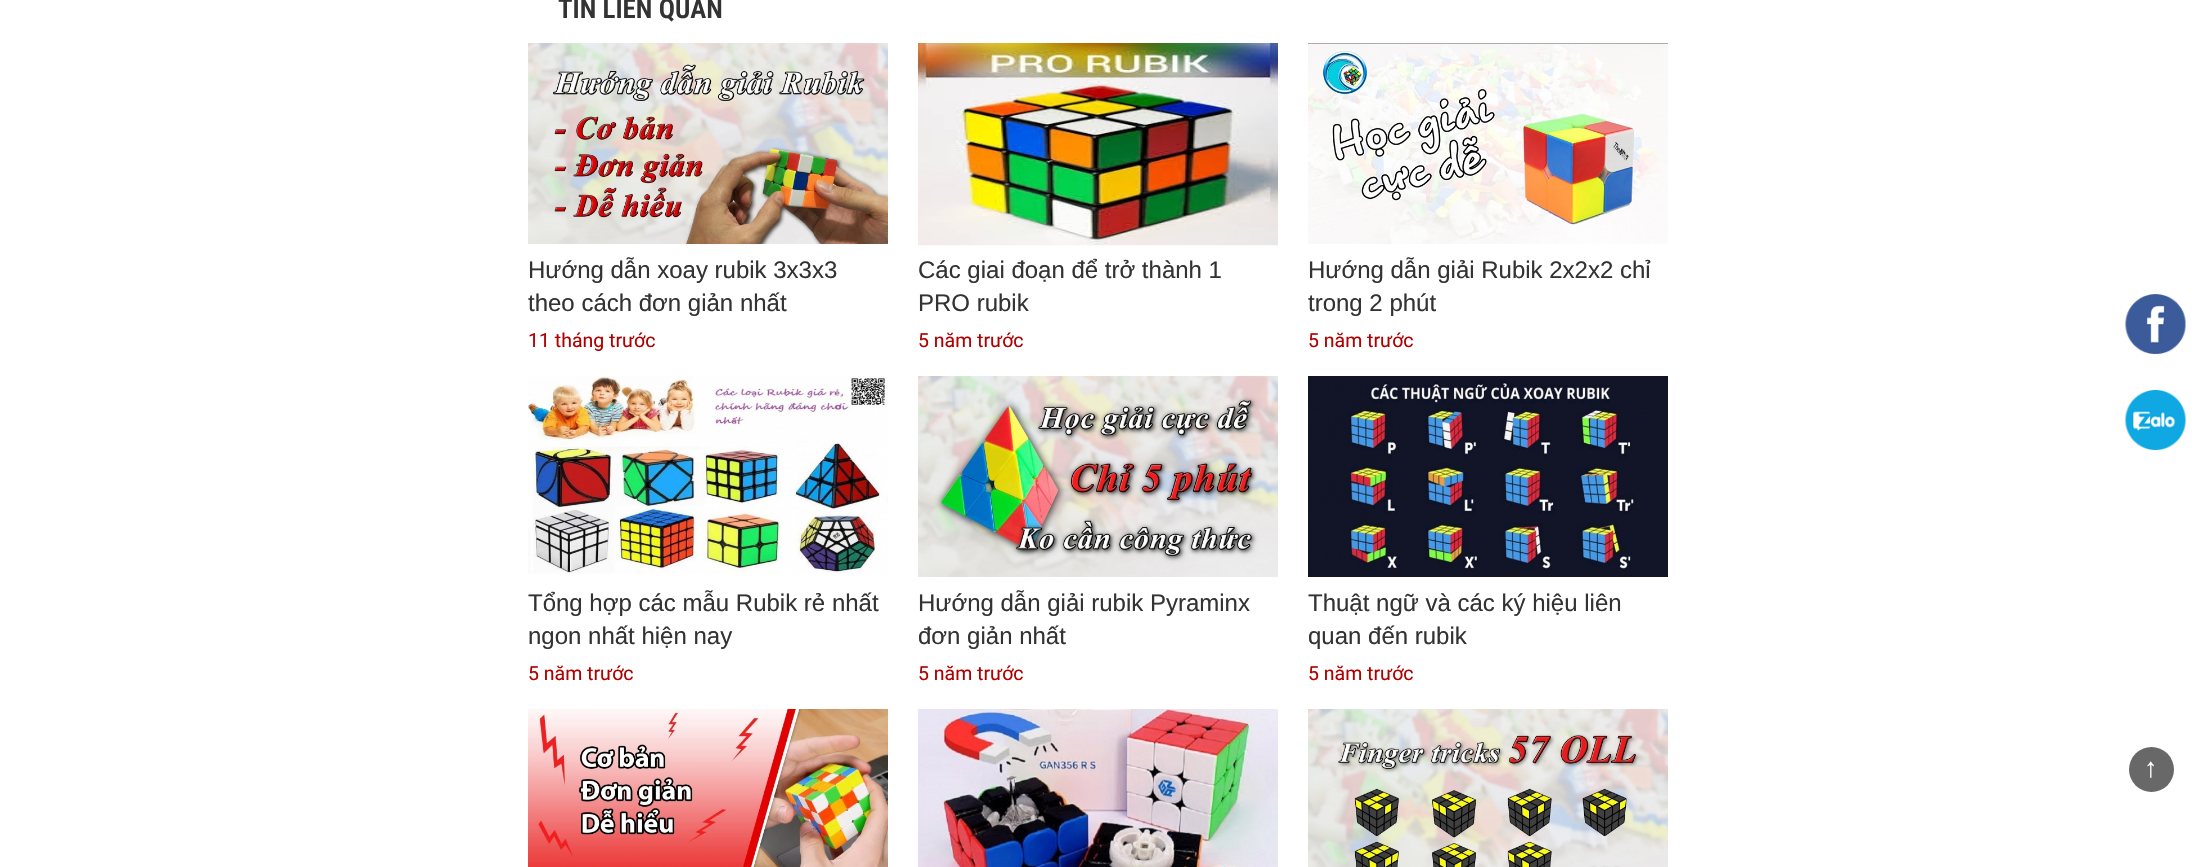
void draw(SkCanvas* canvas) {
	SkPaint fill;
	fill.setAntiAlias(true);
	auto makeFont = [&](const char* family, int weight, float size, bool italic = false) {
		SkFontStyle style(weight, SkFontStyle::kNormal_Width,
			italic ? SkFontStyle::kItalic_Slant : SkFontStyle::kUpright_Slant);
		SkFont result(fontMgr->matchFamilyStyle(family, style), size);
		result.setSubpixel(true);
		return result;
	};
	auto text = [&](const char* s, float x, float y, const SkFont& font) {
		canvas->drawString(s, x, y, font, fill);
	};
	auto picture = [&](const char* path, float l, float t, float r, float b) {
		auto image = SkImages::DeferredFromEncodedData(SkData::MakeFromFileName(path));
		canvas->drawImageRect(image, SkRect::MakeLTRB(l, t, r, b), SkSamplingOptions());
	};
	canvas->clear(0xFFFFFFFF);
	picture("image0.png", 528, 43, 888, 244);
	picture("image1.png", 918, 43, 1278, 246);
	picture("image2.png", 1308, 43, 1668, 244);
	picture("image3.png", 528, 376, 888, 574);
	picture("image4.png", 918, 376, 1278, 577);
	picture("image5.png", 1308, 376, 1668, 577);
	picture("image6.png", 528, 709, 888, 867);
	picture("image7.png", 918, 709, 1278, 867);
	picture("image8.png", 1308, 709, 1668, 867);
	picture("image9.png", 2125, 294, 2186, 354);
	picture("image10.png", 2125, 390, 2186, 450);
	fill.setColor(0xFF686868);
	canvas->drawCircle(2151.5f, 769.5f, 22.5f, fill);
	auto font1 = makeFont("Roboto Condensed", 600, 27);
	fill.setColor(0xFF333333);
	text("TIN LIÊN QUAN", 558, 18, font1);
	auto font2 = makeFont("Liberation Sans", 400, 24);
	text("Hướng dẫn xoay rubik 3x3x3", 528, 278, font2);
	text("theo cách đơn giản nhất", 528, 311, font2);
	auto font3 = makeFont("Roboto", 400, 19.5f);
	fill.setColor(0xFFB10000);
	text("11 tháng trước", 528, 347, font3);
	fill.setColor(0xFF333333);
	text("Các giai đoạn để trở thành 1", 918, 278, font2);
	text("PRO rubik", 918, 311, font2);
	fill.setColor(0xFFB10000);
	text("5 năm trước", 918, 347, font3);
	fill.setColor(0xFF333333);
	text("Hướng dẫn giải Rubik 2x2x2 chỉ", 1308, 278, font2);
	text("trong 2 phút", 1308, 311, font2);
	fill.setColor(0xFFB10000);
	text("5 năm trước", 1308, 347, font3);
	fill.setColor(0xFF333333);
	text("Tổng hợp các mẫu Rubik rẻ nhất", 528, 611, font2);
	text("ngon nhất hiện nay", 528, 644, font2);
	fill.setColor(0xFFB10000);
	text("5 năm trước", 528, 680, font3);
	fill.setColor(0xFF333333);
	text("Hướng dẫn giải rubik Pyraminx", 918, 611, font2);
	text("đơn giản nhất", 918, 644, font2);
	fill.setColor(0xFFB10000);
	text("5 năm trước", 918, 680, font3);
	fill.setColor(0xFF333333);
	text("Thuật ngữ và các ký hiệu liên", 1308, 611, font2);
	text("quan đến rubik", 1308, 644, font2);
	fill.setColor(0xFFB10000);
	text("5 năm trước", 1308, 680, font3);
	auto font4 = makeFont("Liberation Sans", 400, 27);
	fill.setColor(0xFFFFFFFF);
	text("↑", 2144, 777, font4);
}
